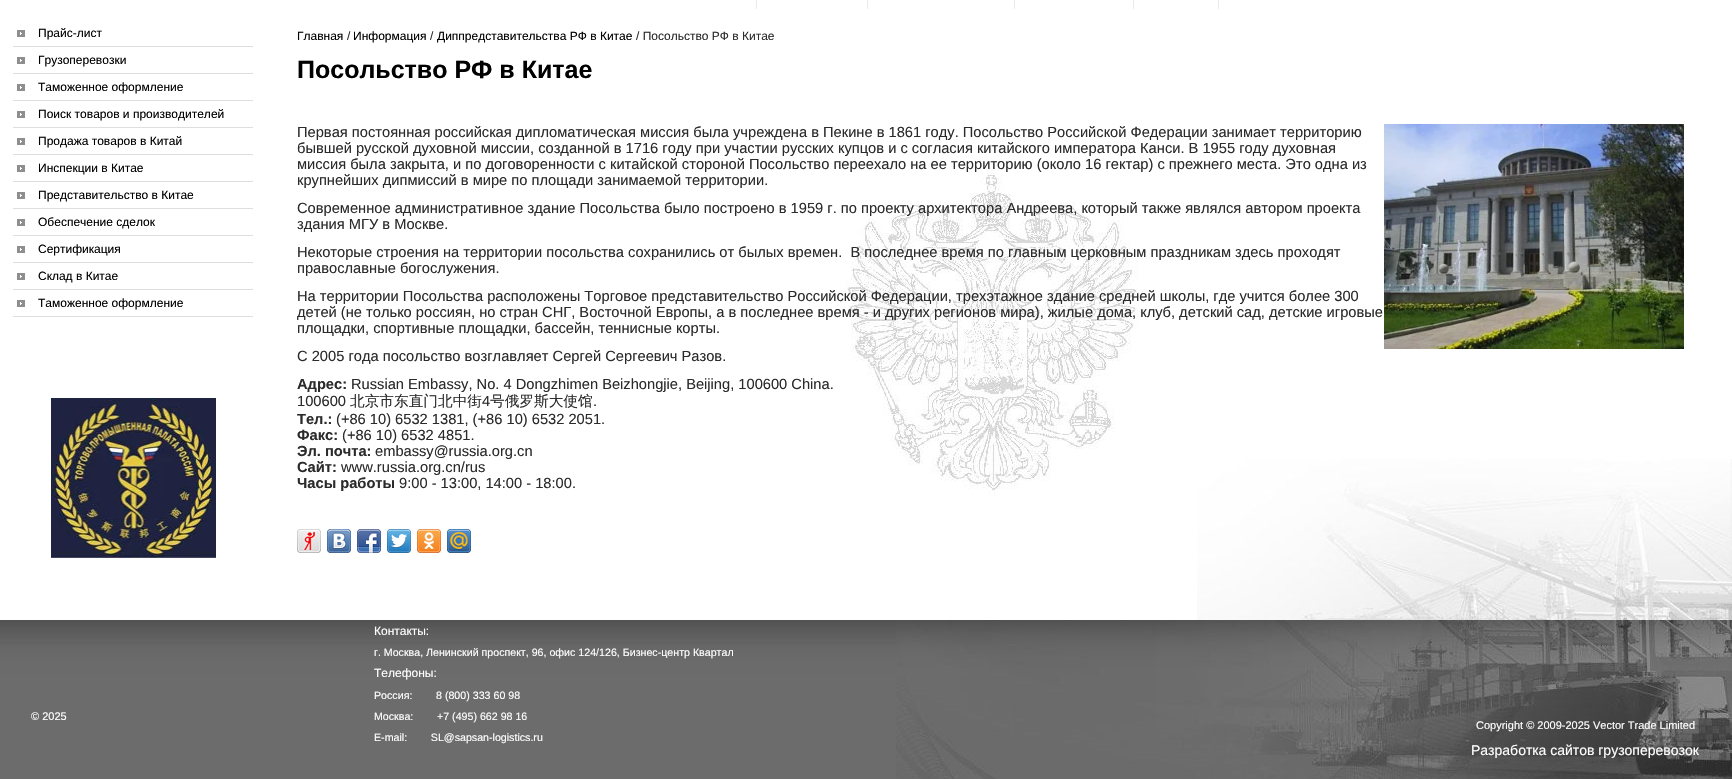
void draw(SkCanvas* canvas) {
	SkPaint fill;
	fill.setAntiAlias(true);
	auto makeFont = [&](const char* family, int weight, float size, bool italic = false) {
		SkFontStyle style(weight, SkFontStyle::kNormal_Width,
			italic ? SkFontStyle::kItalic_Slant : SkFontStyle::kUpright_Slant);
		SkFont result(fontMgr->matchFamilyStyle(family, style), size);
		result.setSubpixel(true);
		return result;
	};
	auto text = [&](const char* s, float x, float y, const SkFont& font) {
		canvas->drawString(s, x, y, font, fill);
	};
	auto box = [&](float l, float t, float r, float b) {
		canvas->drawRect(SkRect::MakeLTRB(l, t, r, b), fill);
	};
	auto picture = [&](const char* path, float l, float t, float r, float b) {
		auto image = SkImages::DeferredFromEncodedData(SkData::MakeFromFileName(path));
		canvas->drawImageRect(image, SkRect::MakeLTRB(l, t, r, b), SkSamplingOptions());
	};
	canvas->clear(0xFFFFFFFF);
	picture("image0.png", 1197, 459, 1732, 620);
	fill.setColor(0xFFDEDEDE);
	box(13, 46, 253, 47);
	picture("image1.png", 17, 30, 25, 37);
	box(13, 73, 253, 74);
	picture("image1.png", 17, 57, 25, 64);
	box(13, 100, 253, 101);
	picture("image1.png", 17, 84, 25, 91);
	box(13, 127, 253, 128);
	picture("image1.png", 17, 111, 25, 118);
	box(13, 154, 253, 155);
	picture("image1.png", 17, 138, 25, 145);
	box(13, 181, 253, 182);
	picture("image1.png", 17, 165, 25, 172);
	box(13, 208, 253, 209);
	picture("image1.png", 17, 192, 25, 199);
	box(13, 235, 253, 236);
	picture("image1.png", 17, 219, 25, 226);
	box(13, 262, 253, 263);
	picture("image1.png", 17, 246, 25, 253);
	box(13, 289, 253, 290);
	picture("image1.png", 17, 273, 25, 280);
	box(13, 316, 253, 317);
	picture("image1.png", 17, 300, 25, 307);
	picture("image2.png", 51, 398, 216, 558);
	picture("image3.png", 844, 169, 1139, 496);
	fill.setColor(0xFFEBEBEB);
	box(756, 0, 757, 9);
	box(867, 0, 868, 9);
	box(1014, 0, 1015, 9);
	box(1133, 0, 1134, 9);
	box(1218, 0, 1219, 9);
	picture("image4.png", 1384, 124, 1684, 349);
	picture("image5.png", 297, 529, 321, 553);
	picture("image6.png", 327, 529, 351, 553);
	picture("image7.png", 357, 529, 381, 553);
	picture("image8.png", 387, 529, 411, 553);
	picture("image9.png", 417, 529, 441, 553);
	picture("image10.png", 447, 529, 471, 553);
	picture("image11.png", 0, 620, 896, 779);
	picture("image12.png", 896, 620, 1732, 779);
	auto font1 = makeFont("Liberation Sans", 400, 12);
	fill.setColor(0xFF000000);
	text("Прайс-лист", 38, 37, font1);
	text("Грузоперевозки", 38, 64, font1);
	text("Таможенное оформление", 38, 91, font1);
	text("Поиск товаров и производителей", 38, 118, font1);
	text("Продажа товаров в Китай", 38, 145, font1);
	text("Инспекции в Китае", 38, 172, font1);
	text("Представительство в Китае", 38, 199, font1);
	text("Обеспечение сделок", 38, 226, font1);
	text("Сертификация", 38, 253, font1);
	text("Склад в Китае", 38, 280, font1);
	text("Таможенное оформление", 38, 307, font1);
	text("Главная", 297, 40, font1);
	fill.setColor(0xFF2B2B2B);
	text("/", 347, 40, font1);
	fill.setColor(0xFF000000);
	text("Информация", 353, 40, font1);
	fill.setColor(0xFF2B2B2B);
	text("/", 430, 40, font1);
	fill.setColor(0xFF000000);
	text("Диппредставительства РФ в Китае", 437, 40, font1);
	fill.setColor(0xFF2B2B2B);
	text("/ Посольство РФ в Китае", 636, 40, font1);
	auto font2 = makeFont("Liberation Sans", 700, 25);
	fill.setColor(0xFF000000);
	text("Посольство РФ в Китае", 297, 78, font2);
	auto font3 = makeFont("Liberation Sans", 400, 14.67f);
	fill.setColor(0xFF2B2B2B);
	text("Первая постоянная российская дипломатическая миссия была учреждена в Пекине в 1861 году. Посольство Российской Федерации занимает территорию", 297, 137, font3);
	text("бывшей русской духовной миссии, созданной в 1716 году при участии русских купцов и с согласия китайского императора Канси. В 1955 году духовная", 297, 153, font3);
	text("миссия была закрыта, и по договоренности с китайской стороной Посольство переехало на ее территорию (около 16 гектар) с прежнего места. Это одна из", 297, 169, font3);
	text("крупнейших дипмиссий в мире по площади занимаемой территории.", 297, 185, font3);
	text("Современное административное здание Посольства было построено в 1959 г. по проекту архитектора Андреева, который также являлся автором проекта", 297, 213, font3);
	text("здания МГУ в Москве.", 297, 229, font3);
	text("Некоторые строения на территории посольства сохранились от былых времен.  В последнее время по главным церковным праздникам здесь проходят", 297, 257, font3);
	text("православные богослужения.", 297, 273, font3);
	text("На территории Посольства расположены Торговое представительство Российской Федерации, трехэтажное здание средней школы, где учится более 300", 297, 301, font3);
	text("детей (не только россиян, но стран СНГ, Восточной Европы, а в последнее время - и других регионов мира), жилые дома, клуб, детский сад, детские игровые", 297, 317, font3);
	text("площадки, спортивные площадки, бассейн, теннисные корты.", 297, 333, font3);
	text("С 2005 года посольство возглавляет Сергей Сергеевич Разов.", 297, 361, font3);
	auto font4 = makeFont("Liberation Sans", 700, 14.67f);
	text("Адрес:", 297, 389, font4);
	text("Russian Embassy, No. 4 Dongzhimen Beizhongjie, Beijing, 100600 China.", 351, 389, font3);
	text("100600", 297, 406, font3);
	auto font5 = makeFont("WenQuanYi Zen Hei", 500, 14.67f);
	text("北京市东直门北中街", 350, 406, font5);
	text("4", 482, 406, font3);
	text("号俄罗斯大使馆", 490, 406, font5);
	text(".", 593, 406, font3);
	text("Тел.:", 297, 424, font4);
	text("(+86 10) 6532 1381, (+86 10) 6532 2051.", 336, 424, font3);
	text("Факс:", 297, 440, font4);
	text("(+86 10) 6532 4851.", 342, 440, font3);
	text("Эл. почта:", 297, 456, font4);
	text("embassy@russia.org.cn", 375, 456, font3);
	text("Сайт:", 297, 472, font4);
	text("www.russia.org.cn/rus", 341, 472, font3);
	text("Часы работы", 297, 488, font4);
	text("9:00 - 13:00, 14:00 - 18:00.", 399, 488, font3);
	auto font6 = makeFont("Liberation Sans", 400, 11);
	fill.setColor(0xFFFFFFFF);
	text("© 2025", 31, 720, font6);
	text("Контакты:", 374, 635, font1);
	auto font7 = makeFont("Liberation Sans", 400, 10.65f);
	text("г. Москва, Ленинский проспект, 96, офис 124/126, Бизнес-центр Квартал", 374, 656, font7);
	text("Телефоны:", 374, 677, font1);
	text("Россия:        8 (800) 333 60 98", 374, 699, font7);
	text("Москва:        +7 (495) 662 98 16", 374, 720, font7);
	text("E-mail:        SL@sapsan-logistics.ru", 374, 741, font7);
	text("Copyright © 2009-2025 Vector Trade Limited", 1476, 729, font6);
	auto font8 = makeFont("Liberation Sans", 400, 14);
	text("Разработка сайтов грузоперевозок", 1471, 755, font8);
}
